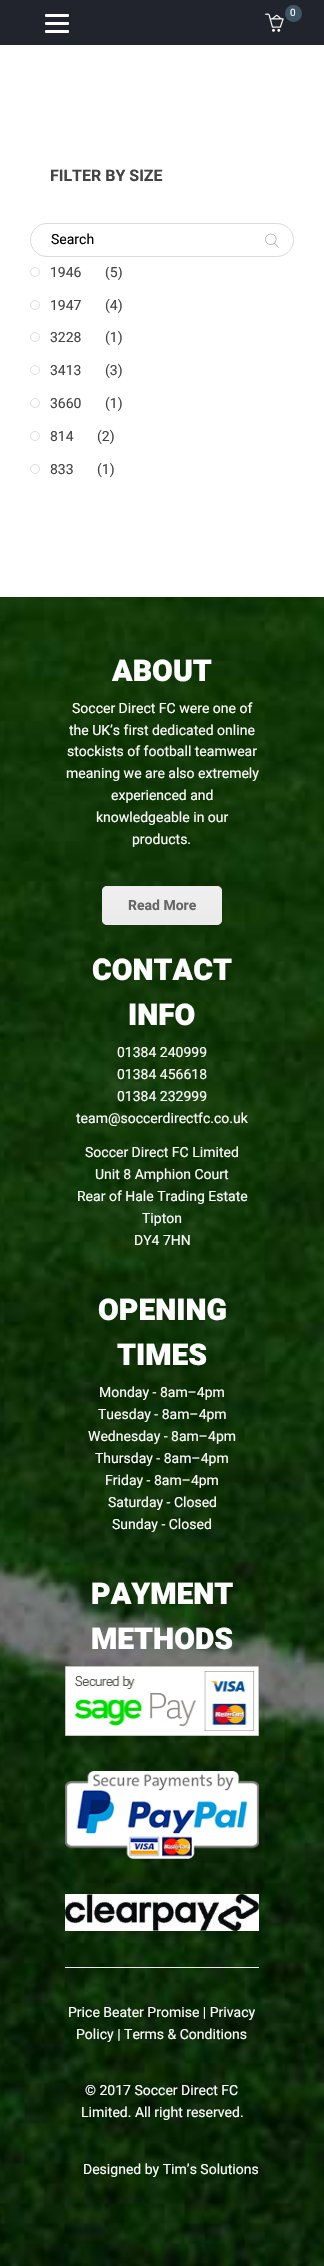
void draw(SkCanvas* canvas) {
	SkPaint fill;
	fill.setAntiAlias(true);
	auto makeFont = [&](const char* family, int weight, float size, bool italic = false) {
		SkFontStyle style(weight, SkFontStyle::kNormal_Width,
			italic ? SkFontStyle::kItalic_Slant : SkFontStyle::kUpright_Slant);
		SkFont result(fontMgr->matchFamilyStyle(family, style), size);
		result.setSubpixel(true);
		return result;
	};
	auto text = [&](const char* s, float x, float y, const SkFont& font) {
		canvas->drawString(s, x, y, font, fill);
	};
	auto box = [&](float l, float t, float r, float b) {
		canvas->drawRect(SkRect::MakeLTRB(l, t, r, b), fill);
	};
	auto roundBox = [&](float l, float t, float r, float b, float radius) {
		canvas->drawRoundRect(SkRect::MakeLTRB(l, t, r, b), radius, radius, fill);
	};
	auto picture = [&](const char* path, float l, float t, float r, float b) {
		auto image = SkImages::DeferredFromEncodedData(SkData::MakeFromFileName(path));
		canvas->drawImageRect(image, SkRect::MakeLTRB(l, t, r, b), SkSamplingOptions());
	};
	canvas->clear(0xFFFFFFFF);
	fill.setColor(0xFF21242D);
	box(0, 0, 324, 45);
	picture("image0.png", 265, 13, 284, 32);
	fill.setColor(0xFF3F5765);
	canvas->drawCircle(293.5f, 13.5f, 8.5f, fill);
	fill.setColor(0xFFFFFFFF);
	roundBox(45, 14, 69, 17, 1);
	roundBox(45, 22, 69, 25, 1);
	roundBox(45, 30, 69, 33, 1);
	fill.setStyle(SkPaint::kStroke_Style);
	fill.setStrokeWidth(1);
	fill.setColor(0xFFDADADA);
	canvas->drawRoundRect(SkRect::MakeLTRB(30.5f, 223.5f, 293.5f, 256.5f), 16.5f, 16.5f, fill);
	picture("image1.png", 265, 233, 279, 248);
	fill.setColor(0xFFDEDEDD);
	canvas->drawCircle(35, 272, 4.5f, fill);
	canvas->drawCircle(35, 305, 4.5f, fill);
	canvas->drawCircle(35, 337, 4.5f, fill);
	canvas->drawCircle(35, 370, 4.5f, fill);
	canvas->drawCircle(35, 403, 4.5f, fill);
	canvas->drawCircle(35, 436, 4.5f, fill);
	canvas->drawCircle(35, 469, 4.5f, fill);
	picture("image2.png", 0, 597, 324, 2266);
	fill.setStyle(SkPaint::kFill_Style);
	fill.setColor(0xFFEBEBEB);
	roundBox(102, 886, 222, 925, 5);
	canvas->save();
	canvas->clipPath(SkPathBuilder().moveTo(107, 886).lineTo(217, 886).cubicTo(220, 886, 222, 888, 222, 891).lineTo(222, 920).cubicTo(222, 923, 220, 925, 217, 925).lineTo(107, 925).cubicTo(104, 925, 102, 923, 102, 920).lineTo(102, 891).cubicTo(102, 888, 104, 886, 107, 886).close().detach(), true);
	{
		const SkColor colors[] = {0x33FFFFFF, 0x03FFFFFF};
		const float stops[] = {0, 1};
		const SkPoint ends[] = {{162, 887}, {162, 924}};
		fill.setShader(SkGradientShader::MakeLinear(ends, colors, stops, 2, SkTileMode::kClamp));
		fill.setAlpha(255);
	}
	box(102, 887, 222, 922);
	canvas->restore();
	fill.setStyle(SkPaint::kStroke_Style);
	fill.setShader(nullptr);
	fill.setColor(0xFFEBEBEB);
	canvas->drawRoundRect(SkRect::MakeLTRB(102.5f, 886.5f, 221.5f, 924.5f), 4.5f, 4.5f, fill);
	picture("image3.png", 65, 1666, 259, 1736);
	picture("image4.png", 65, 1771, 259, 1859);
	picture("image5.png", 65, 1894, 259, 1931);
	fill.setStyle(SkPaint::kFill_Style);
	box(65, 1967, 259, 1968);
	auto font1 = makeFont("Heebo", 400, 10);
	fill.setColor(0xFFFFFFFF);
	text("0", 290, 16, font1);
	auto font2 = makeFont("Heebo", 700, 16);
	fill.setColor(0xFF444444);
	text("FILTER BY SIZE", 50, 181, font2);
	auto font3 = makeFont("Heebo", 400, 14);
	fill.setColor(0xFF000000);
	text("Search", 51, 244, font3);
	fill.setColor(0xFF444444);
	text("1946", 50, 277, font3);
	canvas->save();
	canvas->clipRect(SkRect::MakeLTRB(30, 267, 294, 487));
	text("(5)", 105, 277, font3);
	canvas->restore();
	text("1947", 50, 310, font3);
	text("(4)", 105, 310, font3);
	text("3228", 50, 342, font3);
	text("(1)", 105, 342, font3);
	text("3413", 50, 375, font3);
	text("(3)", 105, 375, font3);
	text("3660", 50, 408, font3);
	text("(1)", 105, 408, font3);
	text("814", 50, 441, font3);
	text("(2)", 97, 441, font3);
	text("833", 50, 474, font3);
	text("(1)", 97, 474, font3);
	auto font4 = makeFont("Heebo", 900, 30);
	fill.setColor(0xFFFFFFFF);
	text("ABOUT", 112, 681, font4);
	text("Soccer Direct FC were one of", 72, 713, font3);
	text("the UK’s first dedicated online", 69, 735, font3);
	text("stockists of football teamwear", 67, 756, font3);
	text("meaning we are also extremely", 66, 778, font3);
	text("experienced and", 111, 800, font3);
	text("knowledgeable in our", 96, 822, font3);
	text("products.", 132, 844, font3);
	auto font5 = makeFont("Heebo", 700, 14);
	fill.setColor(0xFF666666);
	text("Read More", 128, 910, font5);
	fill.setColor(0xFFFFFFFF);
	text("CONTACT", 92, 980, font4);
	text("INFO", 128, 1025, font4);
	text("01384 240999", 117, 1057, font3);
	text("01384 456618", 117, 1079, font3);
	text("01384 232999", 117, 1101, font3);
	text("team@soccerdirectfc.co.uk", 76, 1123, font3);
	text("Soccer Direct FC Limited", 85, 1157, font3);
	text("Unit 8 Amphion Court", 95, 1179, font3);
	text("Rear of Hale Trading Estate", 77, 1201, font3);
	text("Tipton", 142, 1223, font3);
	text("DY4 7HN", 134, 1245, font3);
	text("OPENING", 98, 1320, font4);
	text("TIMES", 117, 1365, font4);
	text("Monday - 8am–4pm", 99, 1397, font3);
	text("Tuesday - 8am–4pm", 98, 1419, font3);
	text("Wednesday - 8am–4pm", 88, 1441, font3);
	text("Thursday - 8am–4pm", 95, 1463, font3);
	text("Friday - 8am–4pm", 105, 1485, font3);
	text("Saturday - Closed", 108, 1507, font3);
	text("Sunday - Closed", 112, 1529, font3);
	text("PAYMENT", 91, 1604, font4);
	text("METHODS", 91, 1649, font4);
	text("Price Beater Promise | Privacy", 68, 2017, font3);
	text("Policy | Terms & Conditions", 76, 2039, font3);
	text("© 2017 Soccer Direct FC", 85, 2095, font3);
	text("Limited. All right reserved.", 81, 2117, font3);
	text("Designed by Tim’s Solutions", 83, 2174, font3);
}
